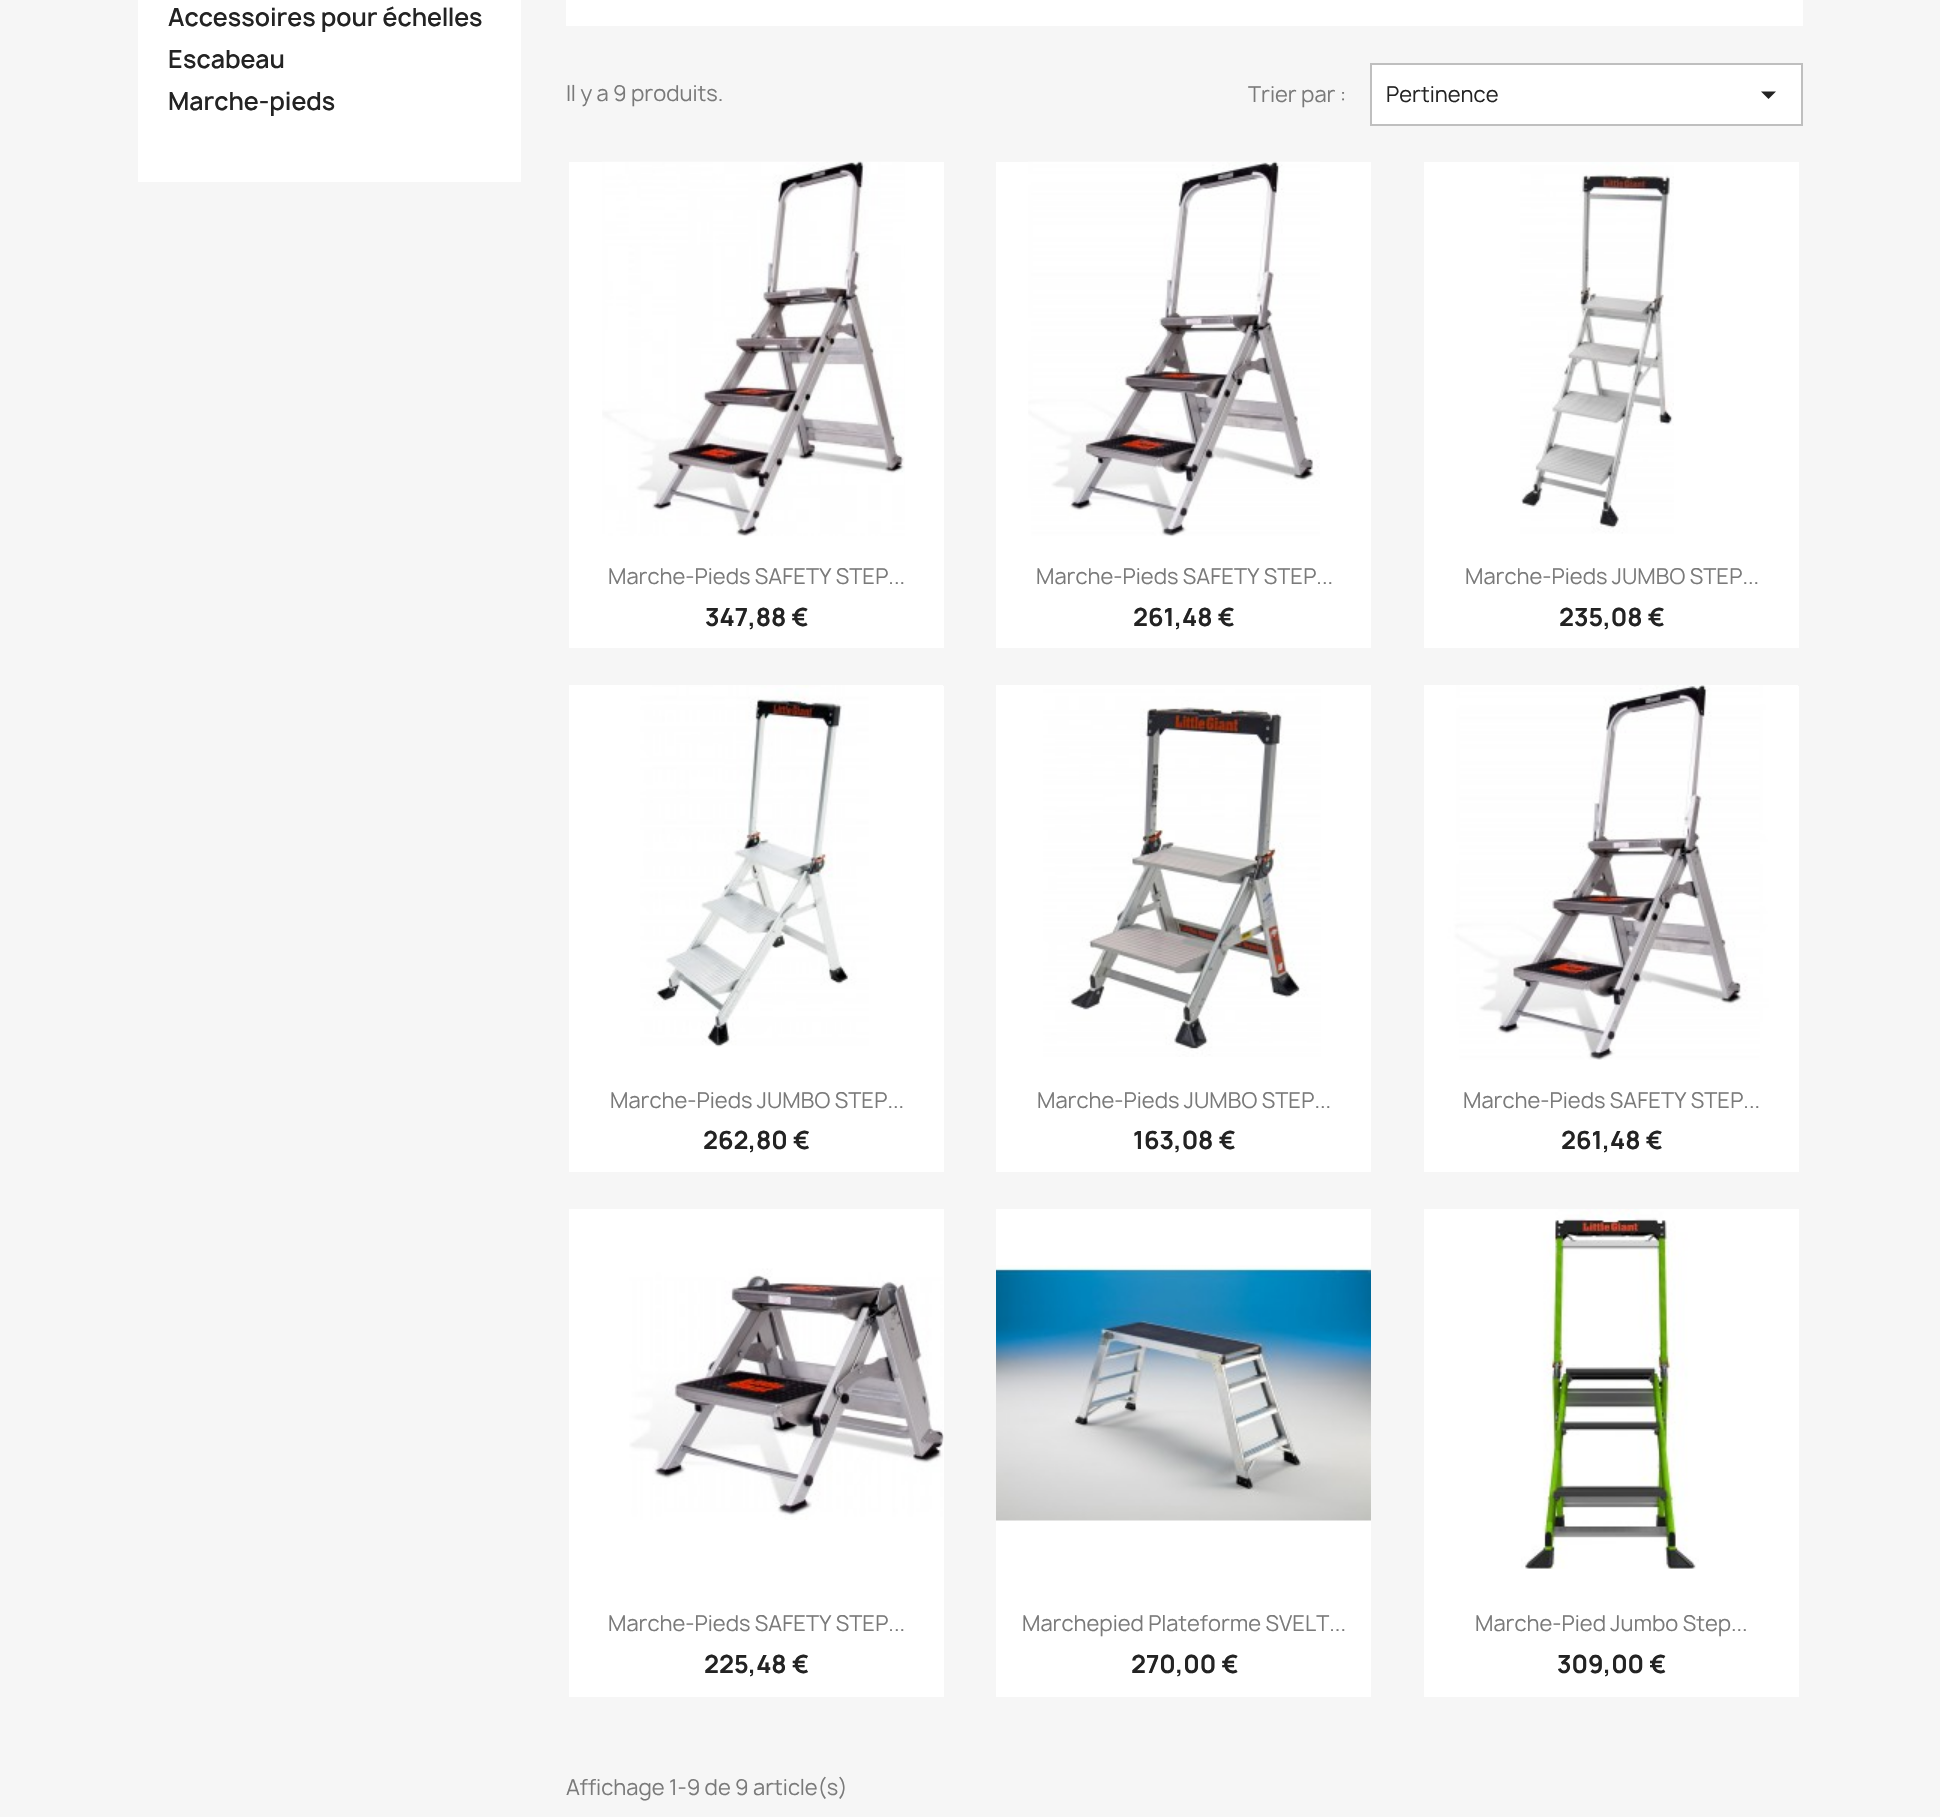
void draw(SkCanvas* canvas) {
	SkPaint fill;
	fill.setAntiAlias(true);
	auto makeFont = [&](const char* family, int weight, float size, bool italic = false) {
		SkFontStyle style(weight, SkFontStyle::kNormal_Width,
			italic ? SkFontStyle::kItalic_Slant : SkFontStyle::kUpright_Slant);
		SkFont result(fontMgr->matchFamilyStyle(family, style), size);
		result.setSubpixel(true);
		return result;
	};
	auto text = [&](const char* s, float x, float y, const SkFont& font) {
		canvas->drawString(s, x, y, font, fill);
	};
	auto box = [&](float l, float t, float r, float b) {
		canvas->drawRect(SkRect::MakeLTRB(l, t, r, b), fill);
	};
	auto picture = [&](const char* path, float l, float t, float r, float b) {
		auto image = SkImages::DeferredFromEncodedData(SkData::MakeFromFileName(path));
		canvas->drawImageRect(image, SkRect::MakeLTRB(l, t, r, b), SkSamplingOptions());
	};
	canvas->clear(0xFFF6F6F6);
	fill.setColor(0xFFFFFFFF);
	box(138, 0, 521, 182);
	box(566, 0, 1803, 26);
	canvas->drawRect(SkRect::MakeLTRB(1371, 64, 1802, 125), fill);
	fill.setStyle(SkPaint::kStroke_Style);
	fill.setStrokeWidth(2);
	fill.setColor(0xFFBFBFBF);
	canvas->drawRect(SkRect::MakeLTRB(1371, 64, 1802, 125), fill);
	fill.setStyle(SkPaint::kFill_Style);
	fill.setColor(0xFF232323);
	canvas->drawPath(SkPathBuilder().moveTo(1761, 91.5f).lineTo(1776, 91.5f).lineTo(1768.5f, 99).close().detach(), fill);
	fill.setColor(0xFFFFFFFF);
	box(569, 162, 944, 648);
	picture("image0.png", 602, 161, 905, 537);
	box(996, 162, 1371, 648);
	picture("image1.png", 1028, 161, 1320, 537);
	box(1424, 162, 1799, 648);
	picture("image2.png", 1520, 162, 1674, 534);
	box(569, 686, 944, 1172);
	picture("image3.png", 569, 685, 943, 1047);
	box(996, 1057, 1371, 1172);
	picture("image4.png", 996, 685, 1371, 1057);
	box(1424, 686, 1799, 1172);
	picture("image5.png", 1424, 685, 1798, 1060);
	box(569, 1209, 944, 1697);
	picture("image6.png", 629, 1268, 944, 1520);
	box(996, 1209, 1371, 1697);
	picture("image7.png", 996, 1265, 1371, 1521);
	box(1424, 1209, 1799, 1697);
	picture("image8.png", 1521, 1209, 1699, 1569);
	auto font1 = makeFont("Manrope", 600, 24);
	fill.setColor(0xFF232323);
	text("Accessoires pour échelles", 168, 26, font1);
	text("Escabeau", 168, 68, font1);
	text("Marche-pieds", 168, 110, font1);
	auto font2 = makeFont("Manrope", 400, 21);
	fill.setColor(0xFF7A7A7A);
	text("Il y a 9 produits.", 566, 101, font2);
	text("Trier par :", 1248, 102, font2);
	fill.setColor(0xFF232323);
	text("Pertinence", 1386, 102, font2);
	fill.setColor(0xFF7A7A7A);
	text("Marche-Pieds SAFETY STEP...", 608, 584, font2);
	auto font3 = makeFont("Manrope", 700, 24);
	fill.setColor(0xFF232323);
	text("347,88 €", 705, 626, font3);
	fill.setColor(0xFF7A7A7A);
	text("Marche-Pieds SAFETY STEP...", 1036, 584, font2);
	fill.setColor(0xFF232323);
	text("261,48 €", 1133, 626, font3);
	fill.setColor(0xFF7A7A7A);
	text("Marche-Pieds JUMBO STEP...", 1465, 584, font2);
	fill.setColor(0xFF232323);
	text("235,08 €", 1559, 626, font3);
	fill.setColor(0xFF7A7A7A);
	text("Marche-Pieds JUMBO STEP...", 610, 1108, font2);
	fill.setColor(0xFF232323);
	text("262,80 €", 703, 1149, font3);
	fill.setColor(0xFF7A7A7A);
	text("Marche-Pieds JUMBO STEP...", 1037, 1108, font2);
	fill.setColor(0xFF232323);
	text("163,08 €", 1133, 1149, font3);
	fill.setColor(0xFF7A7A7A);
	text("Marche-Pieds SAFETY STEP...", 1463, 1108, font2);
	fill.setColor(0xFF232323);
	text("261,48 €", 1561, 1149, font3);
	fill.setColor(0xFF7A7A7A);
	text("Marche-Pieds SAFETY STEP...", 608, 1631, font2);
	fill.setColor(0xFF232323);
	text("225,48 €", 704, 1673, font3);
	fill.setColor(0xFF7A7A7A);
	text("Marchepied Plateforme SVELT...", 1022, 1631, font2);
	fill.setColor(0xFF232323);
	text("270,00 €", 1131, 1673, font3);
	fill.setColor(0xFF7A7A7A);
	text("Marche-Pied Jumbo Step...", 1475, 1631, font2);
	fill.setColor(0xFF232323);
	text("309,00 €", 1557, 1673, font3);
	fill.setColor(0xFF7A7A7A);
	text("Affichage 1-9 de 9 article(s)", 566, 1795, font2);
}
